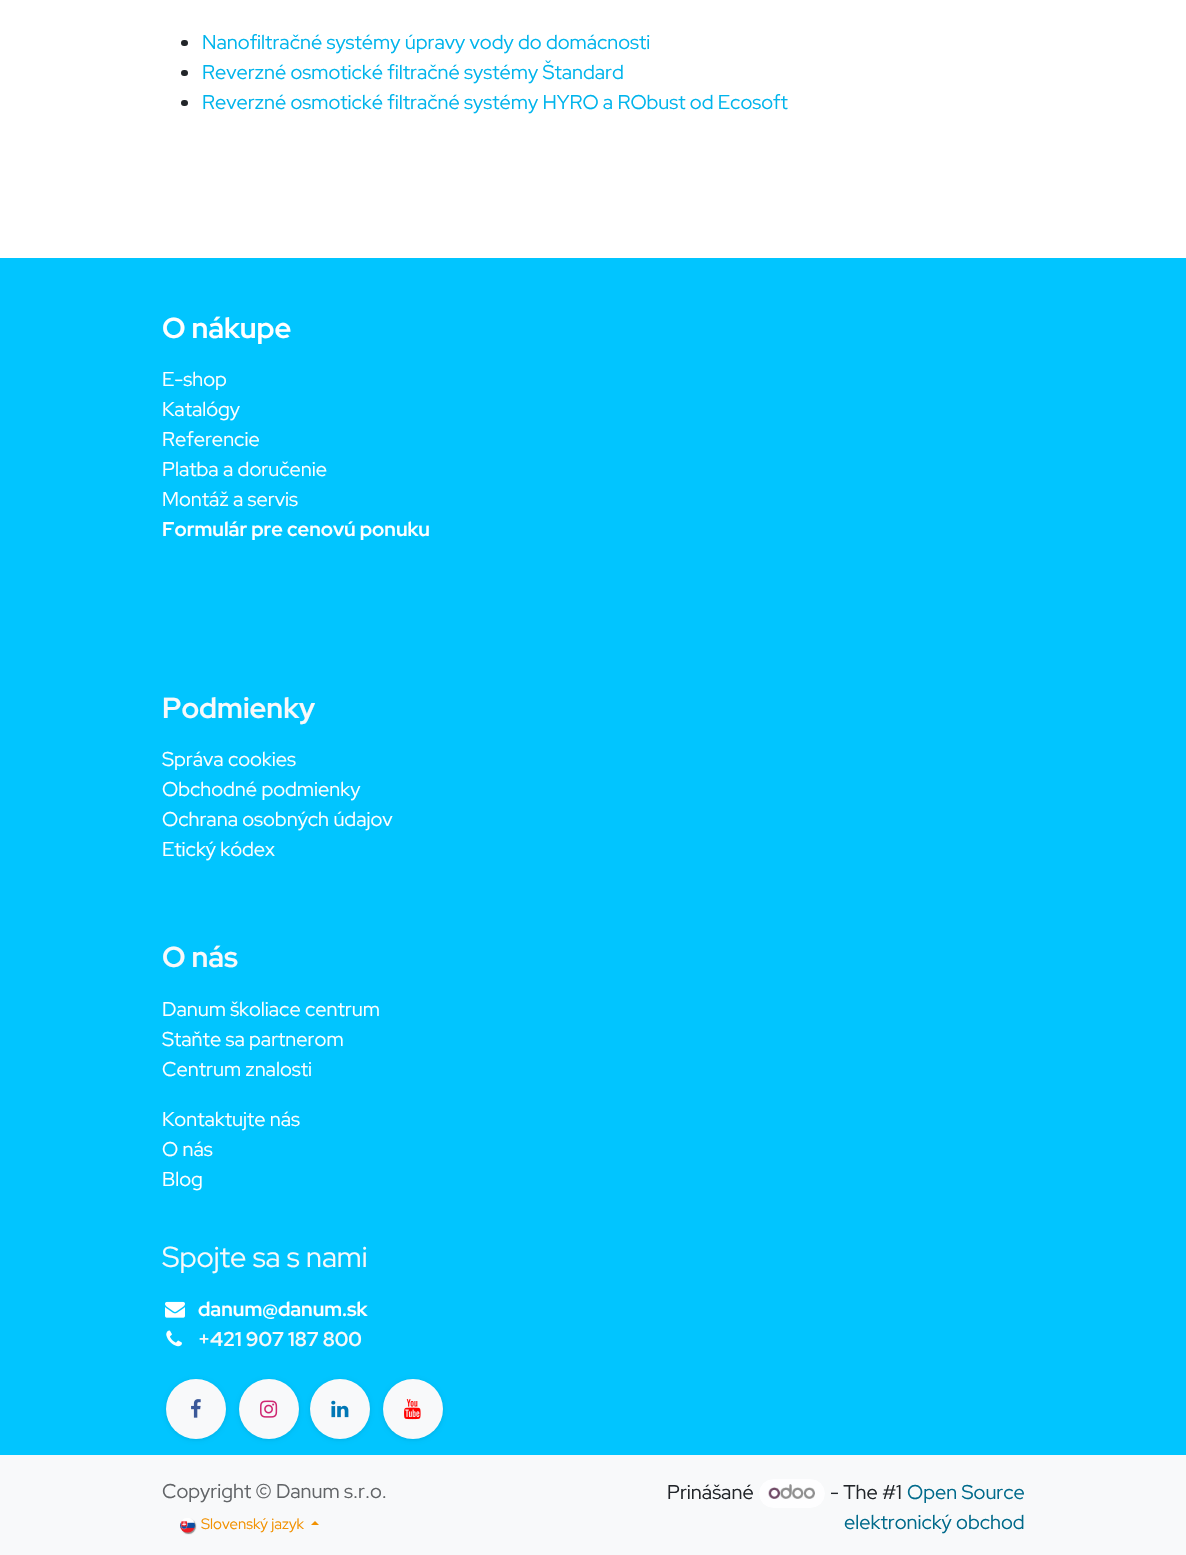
void draw(SkCanvas* canvas) {
	SkPaint fill;
	fill.setAntiAlias(true);
	auto makeFont = [&](const char* family, int weight, float size, bool italic = false) {
		SkFontStyle style(weight, SkFontStyle::kNormal_Width,
			italic ? SkFontStyle::kItalic_Slant : SkFontStyle::kUpright_Slant);
		SkFont result(fontMgr->matchFamilyStyle(family, style), size);
		result.setSubpixel(true);
		return result;
	};
	auto text = [&](const char* s, float x, float y, const SkFont& font) {
		canvas->drawString(s, x, y, font, fill);
	};
	auto box = [&](float l, float t, float r, float b) {
		canvas->drawRect(SkRect::MakeLTRB(l, t, r, b), fill);
	};
	auto roundBox = [&](float l, float t, float r, float b, float radius) {
		canvas->drawRoundRect(SkRect::MakeLTRB(l, t, r, b), radius, radius, fill);
	};
	auto picture = [&](const char* path, float l, float t, float r, float b) {
		auto image = SkImages::DeferredFromEncodedData(SkData::MakeFromFileName(path));
		canvas->drawImageRect(image, SkRect::MakeLTRB(l, t, r, b), SkSamplingOptions());
	};
	canvas->clear(0xFFFFFFFF);
	fill.setColor(0xFF212529);
	roundBox(181, 40, 188, 46, 3);
	roundBox(181, 70, 188, 76, 3);
	roundBox(181, 100, 188, 106, 3);
	fill.setColor(0xFF01C5FF);
	box(0, 258, 1186, 1455);
	picture("image0.png", 165, 1301, 185, 1318);
	picture("image1.png", 166, 1330, 182, 1347);
	fill.setColor(0x1A000000);
	fill.setMaskFilter(SkMaskFilter::MakeBlur(kNormal_SkBlurStyle, 2));
	canvas->drawRoundRect(SkRect::MakeLTRB(166, 1380, 226, 1440), 30, 30, fill);
	fill.setMaskFilter(nullptr);
	fill.setColor(0xFFF8F9FA);
	canvas->drawCircle(196, 1409, 30, fill);
	picture("image2.png", 191, 1399, 201, 1418);
	fill.setColor(0x1A000000);
	fill.setMaskFilter(SkMaskFilter::MakeBlur(kNormal_SkBlurStyle, 2));
	canvas->drawRoundRect(SkRect::MakeLTRB(239, 1380, 299, 1440), 30, 30, fill);
	fill.setMaskFilter(nullptr);
	fill.setColor(0xFFF8F9FA);
	canvas->drawCircle(269, 1409, 30, fill);
	picture("image3.png", 260, 1400, 278, 1418);
	fill.setColor(0x1A000000);
	fill.setMaskFilter(SkMaskFilter::MakeBlur(kNormal_SkBlurStyle, 2));
	canvas->drawRoundRect(SkRect::MakeLTRB(310, 1380, 370, 1440), 30, 30, fill);
	fill.setMaskFilter(nullptr);
	fill.setColor(0xFFF8F9FA);
	canvas->drawCircle(340, 1409, 30, fill);
	picture("image4.png", 331, 1400, 349, 1418);
	fill.setColor(0x1A000000);
	fill.setMaskFilter(SkMaskFilter::MakeBlur(kNormal_SkBlurStyle, 2));
	canvas->drawRoundRect(SkRect::MakeLTRB(383, 1380, 443, 1440), 30, 30, fill);
	fill.setMaskFilter(nullptr);
	fill.setColor(0xFFF8F9FA);
	canvas->drawCircle(413, 1409, 30, fill);
	picture("image5.png", 404, 1399, 421, 1420);
	box(0, 1455, 1186, 1555);
	fill.setColor(0x6E000000);
	fill.setMaskFilter(SkMaskFilter::MakeBlur(kNormal_SkBlurStyle, 0.5f));
	canvas->drawRoundRect(SkRect::MakeLTRB(181, 1519, 196, 1534), 7.5f, 7.5f, fill);
	fill.setMaskFilter(nullptr);
	picture("image6.png", 180, 1518, 195, 1533);
	fill.setColor(0xFFF29100);
	canvas->drawPath(SkPathBuilder().moveTo(319, 1525).lineTo(311, 1525).lineTo(315, 1521).close().detach(), fill);
	fill.setColor(0xFFFEFEFF);
	canvas->drawRoundRect(SkRect::MakeLTRB(758.5f, 1478.5f, 825.5f, 1508.5f), 15, 15, fill);
	fill.setStyle(SkPaint::kStroke_Style);
	fill.setStrokeWidth(1);
	fill.setColor(0xFFF8F9FA);
	canvas->drawRoundRect(SkRect::MakeLTRB(758.5f, 1478.5f, 825.5f, 1508.5f), 15, 15, fill);
	picture("image7.png", 768, 1484, 815, 1499);
	auto font1 = makeFont("Red Hat Display", 400, 20);
	fill.setStyle(SkPaint::kFill_Style);
	fill.setColor(0xFF00B4EC);
	text("Nanofiltračné systémy úpravy vody do domácnosti", 202, 49, font1);
	text("Reverzné osmotické filtračné systémy Štandard", 202, 79, font1);
	text("Reverzné osmotické filtračné systémy HYRO a RObust od Ecosoft", 202, 109, font1);
	auto font2 = makeFont("Red Hat Display", 700, 29);
	fill.setColor(0xFFFFFFFF);
	text("O nákupe", 162, 338, font2);
	text("E-shop", 162, 386, font1);
	text("Katalógy", 162, 416, font1);
	text("Referencie", 162, 446, font1);
	text("Platba a doručenie", 162, 476, font1);
	text("Montáž a servis", 162, 506, font1);
	auto font3 = makeFont("Red Hat Display", 700, 20);
	text("Formulár pre cenovú ponuku", 162, 536, font3);
	fill.setColor(0xFFF8F9FA);
	text("Podmienky", 162, 718, font2);
	fill.setColor(0xFFFFFFFF);
	text("Správa cookies", 162, 766, font1);
	text("Obchodné podmienky", 162, 796, font1);
	text("Ochrana osobných údajov", 162, 826, font1);
	text("Etický kódex", 162, 856, font1);
	fill.setColor(0xFFF8F9FA);
	text("O nás", 162, 967, font2);
	fill.setColor(0xFFFFFFFF);
	text("Danum školiace centrum", 162, 1016, font1);
	text("Staňte sa partnerom", 162, 1046, font1);
	text("Centrum znalosti", 162, 1076, font1);
	text("Kontaktujte nás", 162, 1126, font1);
	text("O nás", 162, 1156, font1);
	text("Blog", 162, 1186, font1);
	auto font4 = makeFont("Red Hat Display", 400, 29);
	fill.setColor(0xFFF8F9FA);
	text("Spojte sa s nami", 162, 1267, font4);
	fill.setColor(0xFFFFFFFF);
	text("danum@danum.sk", 198, 1316, font3);
	fill.setColor(0xFFF8F9FA);
	text("+421 907 187 800", 198, 1346, font3);
	fill.setColor(0xFF626568);
	text("Copyright © Danum s.r.o.", 162, 1498, font1);
	auto font5 = makeFont("Red Hat Display", 400, 15);
	fill.setColor(0xFFF29100);
	text("Slovenský jazyk", 201, 1529, font5);
	fill.setColor(0xFF212529);
	text("Prinášané", 667, 1499, font1);
	text("- The #1", 830, 1499, font1);
	fill.setColor(0xFF006A8B);
	text("Open Source", 907, 1499, font1);
	text("elektronický obchod", 844, 1529, font1);
}
